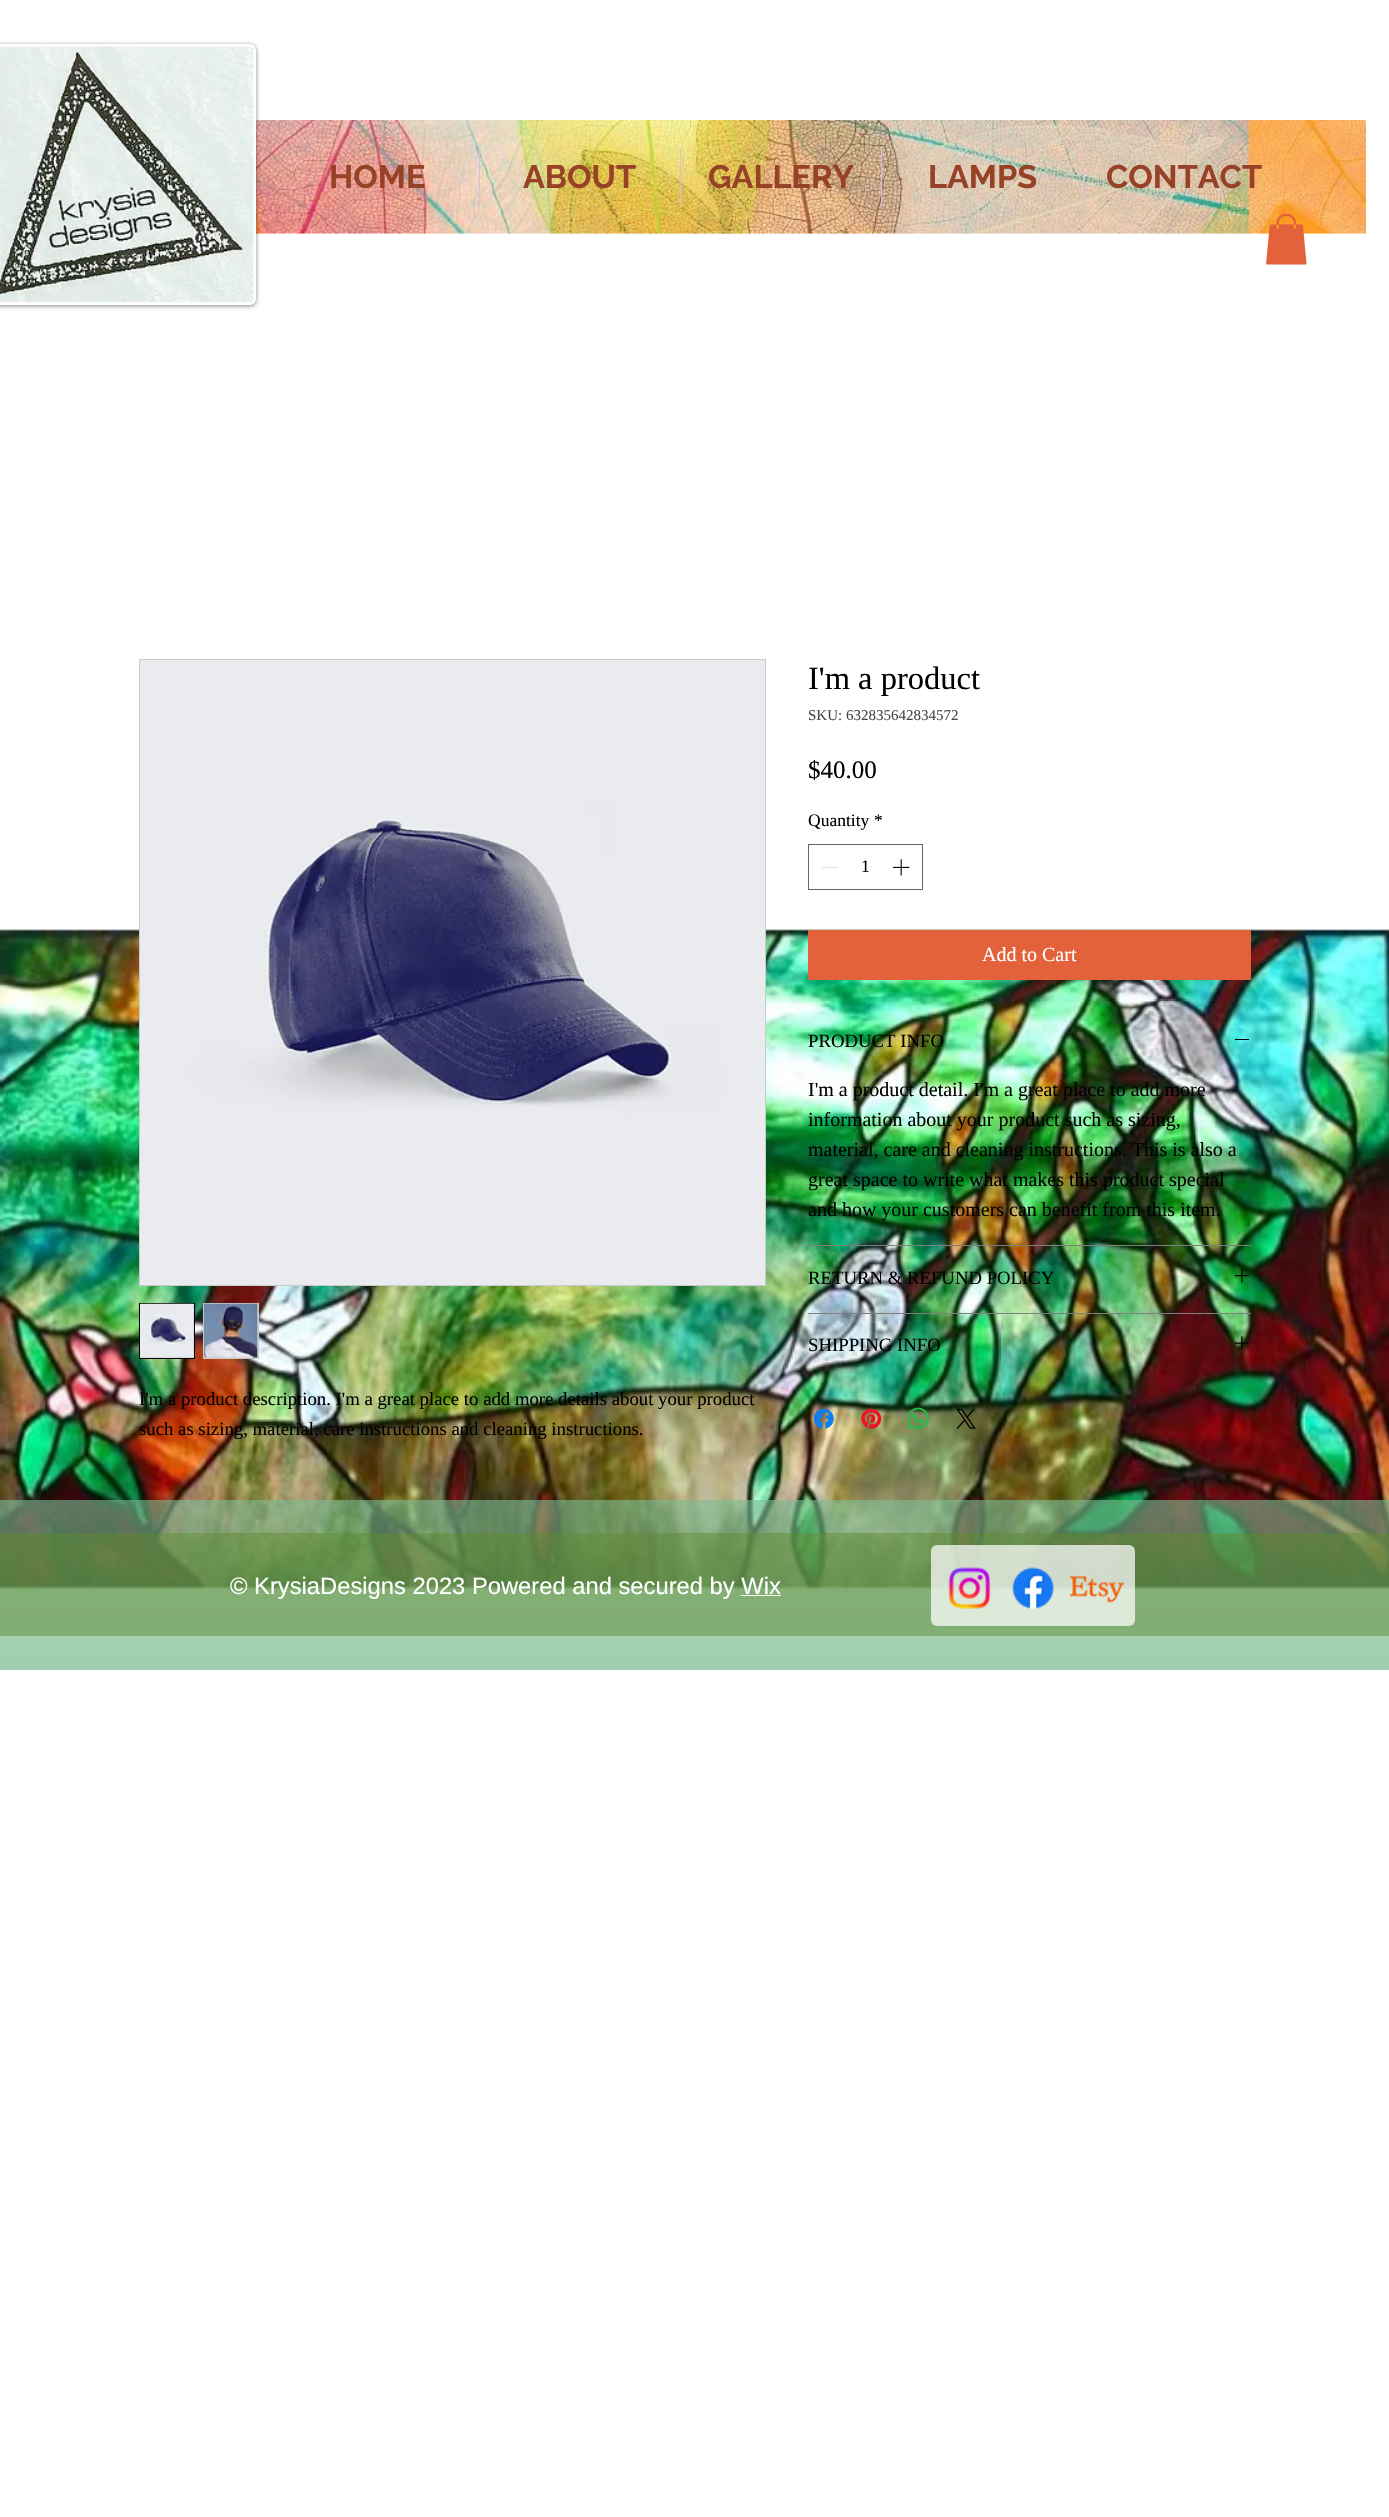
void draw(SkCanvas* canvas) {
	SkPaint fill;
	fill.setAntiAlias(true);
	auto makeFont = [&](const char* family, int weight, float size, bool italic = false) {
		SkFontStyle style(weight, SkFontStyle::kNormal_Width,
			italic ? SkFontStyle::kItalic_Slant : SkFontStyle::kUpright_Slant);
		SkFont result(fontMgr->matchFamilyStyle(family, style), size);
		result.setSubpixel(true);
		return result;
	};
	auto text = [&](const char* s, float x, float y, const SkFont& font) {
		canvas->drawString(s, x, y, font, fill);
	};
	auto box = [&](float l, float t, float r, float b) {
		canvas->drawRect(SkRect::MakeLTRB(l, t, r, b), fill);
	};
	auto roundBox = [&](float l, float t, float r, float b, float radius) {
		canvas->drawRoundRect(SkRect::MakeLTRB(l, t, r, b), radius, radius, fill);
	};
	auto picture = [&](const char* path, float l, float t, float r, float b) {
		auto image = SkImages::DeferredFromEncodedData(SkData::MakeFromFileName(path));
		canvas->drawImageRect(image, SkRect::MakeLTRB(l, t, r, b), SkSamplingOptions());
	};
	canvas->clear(0xFFFFFFFF);
	picture("image1.png", 256, 120, 1367, 234);
	fill.setColor(0x80000000);
	fill.setMaskFilter(SkMaskFilter::MakeBlur(kNormal_SkBlurStyle, 2));
	canvas->drawRoundRect(SkRect::MakeLTRB(-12, 45, 256, 306), 6, 6, fill);
	fill.setMaskFilter(nullptr);
	fill.setStyle(SkPaint::kStroke_Style);
	fill.setStrokeWidth(3);
	fill.setColor(0xFFFFFFFF);
	canvas->drawRoundRect(SkRect::MakeLTRB(-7.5f, 45.5f, 254.5f, 303.5f), 4.5f, 4.5f, fill);
	picture("image0.png", 0, 46, 254, 303);
	fill.setStyle(SkPaint::kFill_Style);
	fill.setColor(0xFFD8BDE2);
	box(479, 148, 480, 206);
	box(680, 148, 681, 206);
	box(881, 148, 882, 206);
	box(1083, 148, 1084, 206);
	picture("image2.png", 1266, 213, 1307, 265);
	fill.setStyle(SkPaint::kStroke_Style);
	fill.setStrokeWidth(1);
	fill.setColor(0xFF666666);
	canvas->drawRect(SkRect::MakeLTRB(808.5f, 844.5f, 922.5f, 889.5f), fill);
	fill.setStyle(SkPaint::kFill_Style);
	fill.setColor(0xFFE3E3E3);
	box(822, 867, 838, 868);
	picture("image3.png", 892, 859, 910, 876);
	picture("image17.png", 0, 929, 1389, 1590);
	fill.setColor(0xFFE3623B);
	box(808, 930, 1251, 980);
	fill.setColor(0xFF7F7E7E);
	box(808, 1245, 1251, 1246);
	fill.setColor(0xFF000000);
	box(1235, 1039, 1249, 1040);
	fill.setColor(0xFF7F7E7E);
	box(808, 1313, 1251, 1314);
	picture("image4.png", 1235, 1268, 1249, 1283);
	picture("image5.png", 1235, 1336, 1249, 1350);
	picture("image6.png", 813, 1408, 834, 1429);
	picture("image7.png", 861, 1408, 882, 1429);
	picture("image8.png", 907, 1407, 929, 1429);
	picture("image9.png", 956, 1408, 976, 1429);
	fill.setStyle(SkPaint::kStroke_Style);
	fill.setColor(0xFFCACACA);
	canvas->drawRect(SkRect::MakeLTRB(139.5f, 659.5f, 765.5f, 1285.5f), fill);
	picture("image10.png", 140, 660, 765, 1285);
	fill.setStyle(SkPaint::kFill_Style);
	canvas->drawRect(SkRect::MakeLTRB(139.5f, 1303.5f, 194.5f, 1358.5f), fill);
	fill.setStyle(SkPaint::kStroke_Style);
	fill.setColor(0xFF000000);
	canvas->drawRect(SkRect::MakeLTRB(139.5f, 1303.5f, 194.5f, 1358.5f), fill);
	picture("image11.png", 140, 1303, 194, 1358);
	fill.setStyle(SkPaint::kFill_Style);
	fill.setColor(0xFFCACACA);
	box(203, 1303, 259, 1359);
	picture("image12.png", 203, 1303, 258, 1358);
	fill.setColor(0x7A1C8A43);
	box(0, 1500, 1389, 1670);
	picture("image13.png", 0, 1500, 1389, 1670);
	fill.setColor(0x7D5E8A30);
	box(0, 1533, 1389, 1636);
	fill.setColor(0xFFFFFFFF);
	box(741, 1595, 781, 1596);
	fill.setColor(0xB8FFFFFF);
	roundBox(931, 1545, 1135, 1626, 6);
	picture("image14.png", 948, 1567, 991, 1609);
	picture("image15.png", 1012, 1567, 1054, 1609);
	picture("image16.png", 1070, 1576, 1124, 1603);
	auto font1 = makeFont("Raleway", 700, 32.5f);
	fill.setColor(0xFF974127);
	text("HOME", 329, 188, font1);
	text("ABOUT", 523, 188, font1);
	text("GALLERY", 708, 188, font1);
	text("LAMPS", 928, 188, font1);
	text("CONTACT", 1106, 188, font1);
	auto font2 = makeFont("Liberation Serif", 400, 32.5f);
	fill.setColor(0xFF000000);
	text("I'm a product", 808, 689, font2);
	auto font3 = makeFont("Liberation Serif", 400, 15);
	fill.setColor(0xFF464646);
	text("SKU: 632835642834572", 808, 720, font3);
	auto font4 = makeFont("Liberation Serif", 400, 25);
	fill.setColor(0xFF000000);
	text("$40.00", 808, 778, font4);
	auto font5 = makeFont("Liberation Serif", 400, 17.5f);
	text("Quantity", 808, 826, font5);
	text("*", 874, 826, font5);
	text("1", 861, 872, font5);
	auto font6 = makeFont("Liberation Serif", 400, 20);
	fill.setColor(0xFFFFFFFF);
	text("Add to Cart", 982, 961, font6);
	auto font7 = makeFont("Liberation Serif", 400, 18.75f);
	fill.setColor(0xFF000000);
	text("PRODUCT INFO", 808, 1047, font7);
	text("I'm a product detail. I'm a great place to add more", 808, 1096, font6);
	text("information about your product such as sizing,", 808, 1126, font6);
	text("material, care and cleaning instructions. This is also a", 808, 1156, font6);
	text("great space to write what makes this product special", 808, 1186, font6);
	text("and how your customers can benefit from this item.", 808, 1216, font6);
	text("RETURN & REFUND POLICY", 808, 1284, font7);
	text("SHIPPING INFO", 808, 1351, font7);
	text("I'm a product description. I'm a great place to add more details about your product", 139, 1405, font7);
	text("such as sizing, material, care instructions and cleaning instructions.", 139, 1435, font7);
	auto font8 = makeFont("Liberation Sans", 400, 23.75f);
	fill.setColor(0xFFFFFFFF);
	text("© KrysiaDesigns 2023 Powered and secured by Wix", 230, 1594, font8);
}
